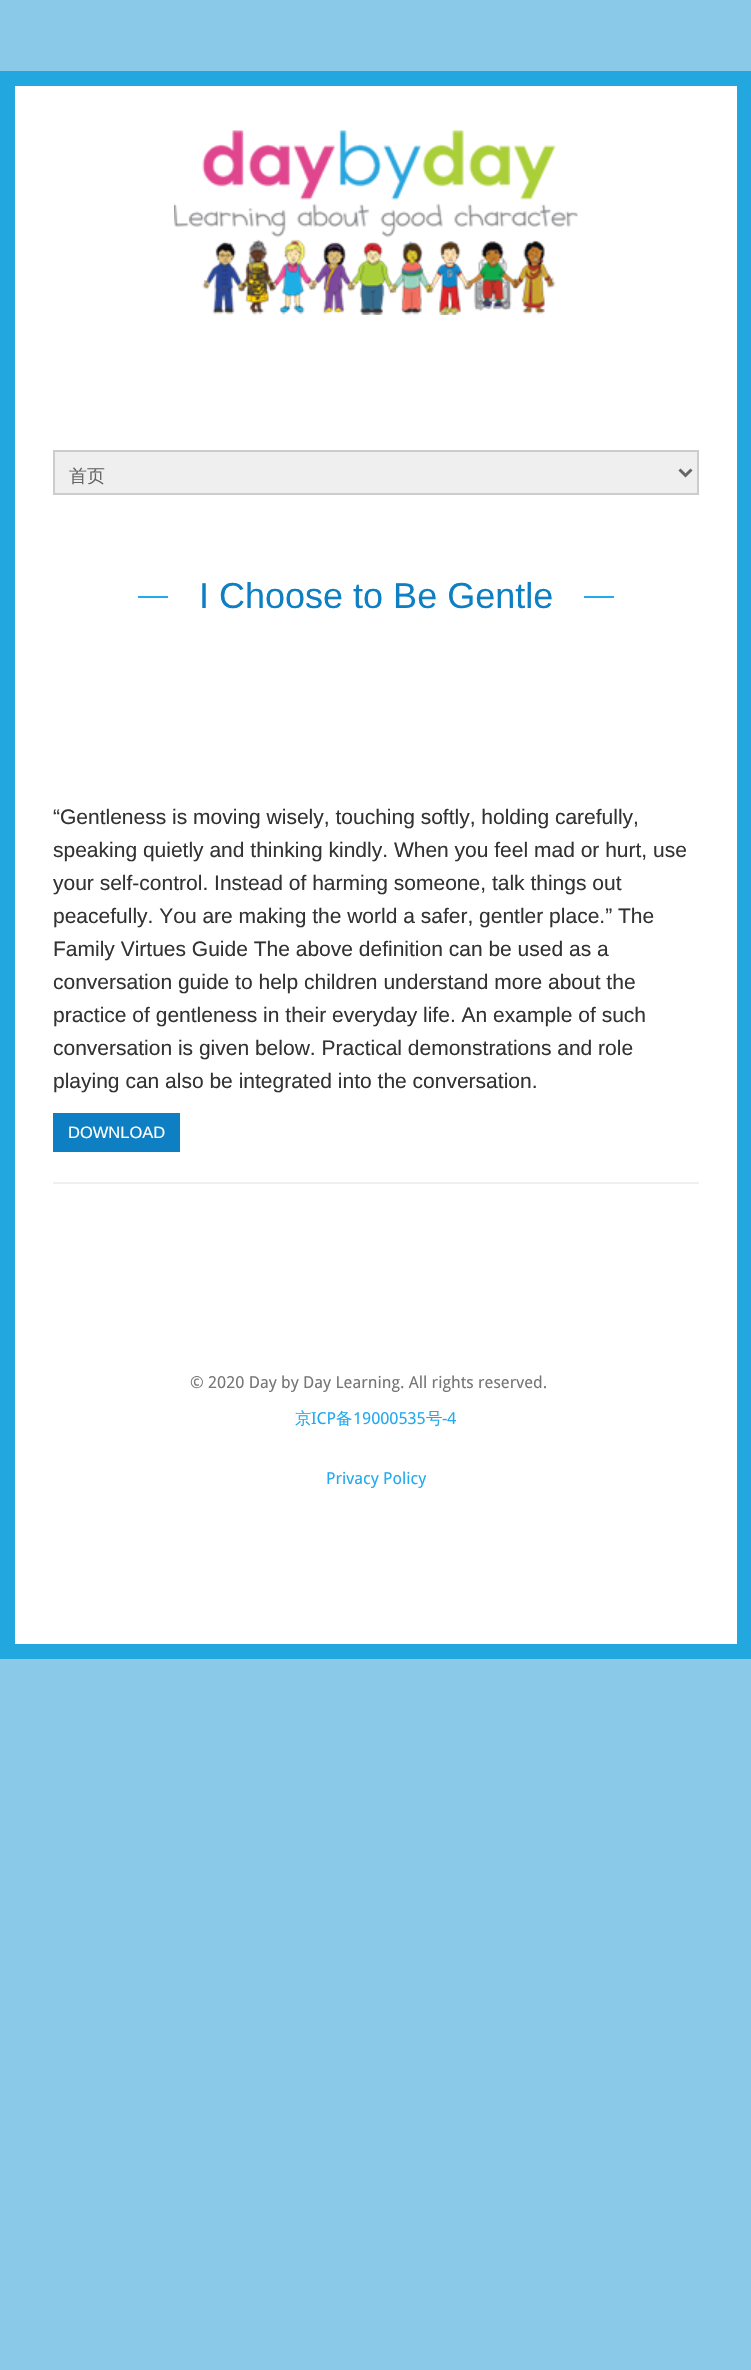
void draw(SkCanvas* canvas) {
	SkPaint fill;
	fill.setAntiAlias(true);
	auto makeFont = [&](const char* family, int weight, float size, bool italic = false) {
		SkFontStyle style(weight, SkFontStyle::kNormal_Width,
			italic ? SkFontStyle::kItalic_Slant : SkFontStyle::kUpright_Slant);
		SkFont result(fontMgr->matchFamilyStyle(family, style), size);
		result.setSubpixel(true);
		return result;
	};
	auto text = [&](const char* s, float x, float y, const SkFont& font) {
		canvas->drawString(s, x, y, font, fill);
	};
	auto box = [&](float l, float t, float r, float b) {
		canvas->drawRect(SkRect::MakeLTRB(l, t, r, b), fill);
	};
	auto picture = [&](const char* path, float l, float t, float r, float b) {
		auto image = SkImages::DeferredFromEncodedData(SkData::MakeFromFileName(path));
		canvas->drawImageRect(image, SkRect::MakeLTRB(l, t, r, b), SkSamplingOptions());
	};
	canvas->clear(0xFF8BC9E8);
	fill.setColor(0xFFFFFFFF);
	canvas->drawRect(SkRect::MakeLTRB(7.5f, 78.5f, 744.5f, 1651.5f), fill);
	fill.setStyle(SkPaint::kStroke_Style);
	fill.setStrokeWidth(15);
	fill.setColor(0xFF23A7DF);
	canvas->drawRect(SkRect::MakeLTRB(7.5f, 78.5f, 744.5f, 1651.5f), fill);
	picture("image0.png", 174, 130, 578, 315);
	fill.setStyle(SkPaint::kFill_Style);
	fill.setColor(0xFFEFEFEF);
	canvas->drawRect(SkRect::MakeLTRB(54, 451, 698, 494), fill);
	fill.setStyle(SkPaint::kStroke_Style);
	fill.setStrokeWidth(2);
	fill.setColor(0xFFCCCCCC);
	canvas->drawRect(SkRect::MakeLTRB(54, 451, 698, 494), fill);
	fill.setStrokeWidth(3);
	fill.setColor(0xFF666666);
	canvas->drawPath(SkPathBuilder().moveTo(679.5f, 469.5f).lineTo(685.5f, 475.5f).lineTo(691.5f, 469.5f).detach(), fill);
	fill.setStyle(SkPaint::kFill_Style);
	fill.setColor(0xFF22AAEE);
	box(138, 596, 168, 598);
	box(584, 596, 614, 598);
	fill.setColor(0xFFEFEFEF);
	box(53, 1182, 699, 1184);
	fill.setColor(0xFF0F7FC3);
	box(53, 1113, 180, 1152);
	auto font1 = makeFont("WenQuanYi Zen Hei", 500, 18);
	fill.setColor(0xFF666666);
	text("首页", 69, 482, font1);
	auto font2 = makeFont("Liberation Sans", 400, 36);
	fill.setColor(0xFF0F7FC3);
	text("I Choose to Be Gentle", 199, 608, font2);
	auto font3 = makeFont("Liberation Sans", 400, 21);
	fill.setColor(0xFF333333);
	text("“Gentleness is moving wisely, touching softly, holding carefully,", 53, 824, font3);
	text("speaking quietly and thinking kindly. When you feel mad or hurt, use", 53, 857, font3);
	text("your self-control. Instead of harming someone, talk things out", 53, 890, font3);
	text("peacefully. You are making the world a safer, gentler place.” The", 53, 923, font3);
	text("Family Virtues Guide The above definition can be used as a", 53, 956, font3);
	text("conversation guide to help children understand more about the", 53, 989, font3);
	text("practice of gentleness in their everyday life. An example of such", 53, 1022, font3);
	text("conversation is given below. Practical demonstrations and role", 53, 1055, font3);
	text("playing can also be integrated into the conversation.", 53, 1088, font3);
	auto font4 = makeFont("Liberation Sans", 400, 16.5f);
	fill.setColor(0xFFFFFFFF);
	text("DOWNLOAD", 68, 1138, font4);
	auto font5 = makeFont("Droid Sans", 400, 16.5f);
	fill.setColor(0xFF767676);
	text("© 2020 Day by Day Learning. All rights reserved.", 190, 1388, font5);
	auto font6 = makeFont("WenQuanYi Zen Hei", 500, 16.5f);
	fill.setColor(0xFF22AAEE);
	text("京", 295, 1424, font6);
	text("ICP", 311, 1424, font5);
	text("备", 336, 1424, font6);
	text("19000535", 353, 1424, font5);
	text("号", 426, 1424, font6);
	text("-4", 442, 1424, font5);
	text("Privacy Policy", 326, 1484, font5);
}
